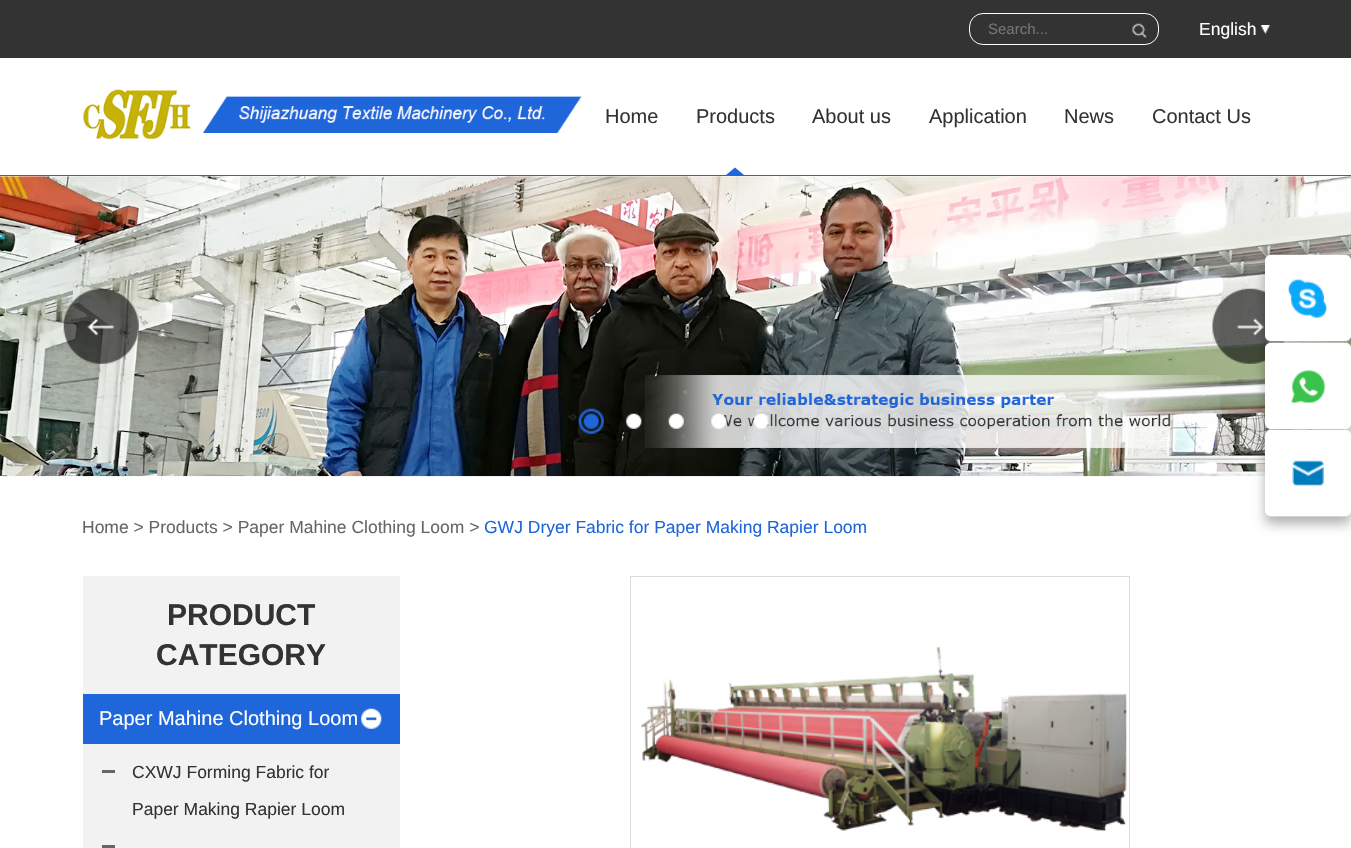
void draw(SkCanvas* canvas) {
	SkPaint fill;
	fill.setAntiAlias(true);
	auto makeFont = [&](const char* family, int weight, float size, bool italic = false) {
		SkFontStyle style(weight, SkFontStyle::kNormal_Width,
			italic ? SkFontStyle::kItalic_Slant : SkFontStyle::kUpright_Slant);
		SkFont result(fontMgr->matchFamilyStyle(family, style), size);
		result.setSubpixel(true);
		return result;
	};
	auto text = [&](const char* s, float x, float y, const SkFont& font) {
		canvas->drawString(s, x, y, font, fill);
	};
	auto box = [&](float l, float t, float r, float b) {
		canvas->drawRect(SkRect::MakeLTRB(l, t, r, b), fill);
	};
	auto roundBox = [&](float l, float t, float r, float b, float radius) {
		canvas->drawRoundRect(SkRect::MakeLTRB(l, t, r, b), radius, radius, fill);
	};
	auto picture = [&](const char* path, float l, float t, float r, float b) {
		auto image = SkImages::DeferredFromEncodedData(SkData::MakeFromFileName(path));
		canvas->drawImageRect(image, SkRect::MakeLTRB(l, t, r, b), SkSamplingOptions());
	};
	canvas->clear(0xFFFFFFFF);
	fill.setColor(0xFF1F66DA);
	box(0, 175, 1351, 176);
	fill.setColor(0xFF333333);
	box(0, 0, 1351, 58);
	fill.setStyle(SkPaint::kStroke_Style);
	fill.setStrokeWidth(1);
	fill.setColor(0xFFFFFFFF);
	canvas->drawRoundRect(SkRect::MakeLTRB(969.5f, 13.5f, 1158.5f, 44.5f), 13.5f, 13.5f, fill);
	picture("image0.png", 1132, 23, 1147, 38);
	picture("image1.png", 1261, 25, 1270, 34);
	picture("image2.png", 83, 89, 582, 140);
	fill.setStyle(SkPaint::kFill_Style);
	fill.setColor(0xFF1F66DA);
	canvas->drawPath(SkPathBuilder().moveTo(744, 175).lineTo(726, 175).lineTo(735, 167.5f).close().detach(), fill);
	picture("image3.png", 0, 176, 1351, 477);
	picture("image4.png", 63, 288, 139, 364);
	picture("image5.png", 1212, 288, 1286, 364);
	picture("image6.png", 578, 408, 604, 434);
	picture("image7.png", 626, 413, 642, 429);
	picture("image8.png", 668, 413, 684, 429);
	picture("image9.png", 711, 413, 727, 429);
	picture("image10.png", 753, 413, 769, 429);
	fill.setColor(0x4D000000);
	fill.setMaskFilter(SkMaskFilter::MakeBlur(kNormal_SkBlurStyle, 6));
	canvas->drawRoundRect(SkRect::MakeLTRB(1265, 263, 1351, 349), 6, 6, fill);
	fill.setMaskFilter(nullptr);
	fill.setColor(0xFFFFFFFF);
	roundBox(1265, 255, 1351, 341, 6);
	fill.setColor(0x4D000000);
	fill.setMaskFilter(SkMaskFilter::MakeBlur(kNormal_SkBlurStyle, 6));
	canvas->drawRoundRect(SkRect::MakeLTRB(1265, 350, 1351, 436), 6, 6, fill);
	fill.setMaskFilter(nullptr);
	picture("image11.png", 1265, 254, 1351, 342);
	fill.setColor(0xFFFFFFFF);
	roundBox(1265, 343, 1351, 429, 6);
	fill.setColor(0x4D000000);
	fill.setMaskFilter(SkMaskFilter::MakeBlur(kNormal_SkBlurStyle, 6));
	canvas->drawRoundRect(SkRect::MakeLTRB(1265, 438, 1351, 524), 6, 6, fill);
	fill.setMaskFilter(nullptr);
	picture("image12.png", 1265, 342, 1351, 429);
	fill.setColor(0xFFFFFFFF);
	roundBox(1265, 430, 1351, 516, 6);
	picture("image13.png", 1265, 429, 1351, 517);
	fill.setColor(0xFFF2F2F2);
	box(83, 576, 400, 848);
	fill.setColor(0xFF1F66DA);
	box(83, 694, 400, 744);
	picture("image14.png", 361, 708, 382, 729);
	fill.setColor(0xFF666666);
	box(102, 770, 115, 773);
	box(102, 845, 115, 848);
	fill.setStyle(SkPaint::kStroke_Style);
	fill.setColor(0xFFDCDCDC);
	canvas->drawRect(SkRect::MakeLTRB(630.5f, 576.5f, 1129.5f, 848.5f), fill);
	picture("image15.png", 641, 647, 1127, 831);
	auto font1 = makeFont("Liberation Sans", 400, 15);
	fill.setStyle(SkPaint::kFill_Style);
	fill.setColor(0xFF757575);
	text("Search...", 988, 34, font1);
	auto font2 = makeFont("Liberation Sans", 400, 17.5f);
	fill.setColor(0xFFFFFFFF);
	text("English", 1199, 35, font2);
	auto font3 = makeFont("Liberation Sans", 400, 20);
	fill.setColor(0xFF333333);
	text("Home", 605, 123, font3);
	text("Products", 696, 123, font3);
	text("About us", 812, 123, font3);
	text("Application", 929, 123, font3);
	text("News", 1064, 123, font3);
	text("Contact Us", 1152, 123, font3);
	fill.setColor(0xFF666666);
	text("Home > Products > Paper Mahine Clothing Loom >", 82, 533, font2);
	fill.setColor(0xFF1F66DA);
	text("GWJ Dryer Fabric for Paper Making Rapier Loom", 484, 533, font2);
	auto font4 = makeFont("Liberation Sans", 700, 30);
	fill.setColor(0xFF333333);
	text("PRODUCT", 167, 625, font4);
	text("CATEGORY", 156, 665, font4);
	fill.setColor(0xFFFFFFFF);
	text("Paper Mahine Clothing Loom", 99, 725, font3);
	fill.setColor(0xFF333333);
	text("CXWJ Forming Fabric for", 132, 778, font2);
	text("Paper Making Rapier Loom", 132, 815, font2);
}
